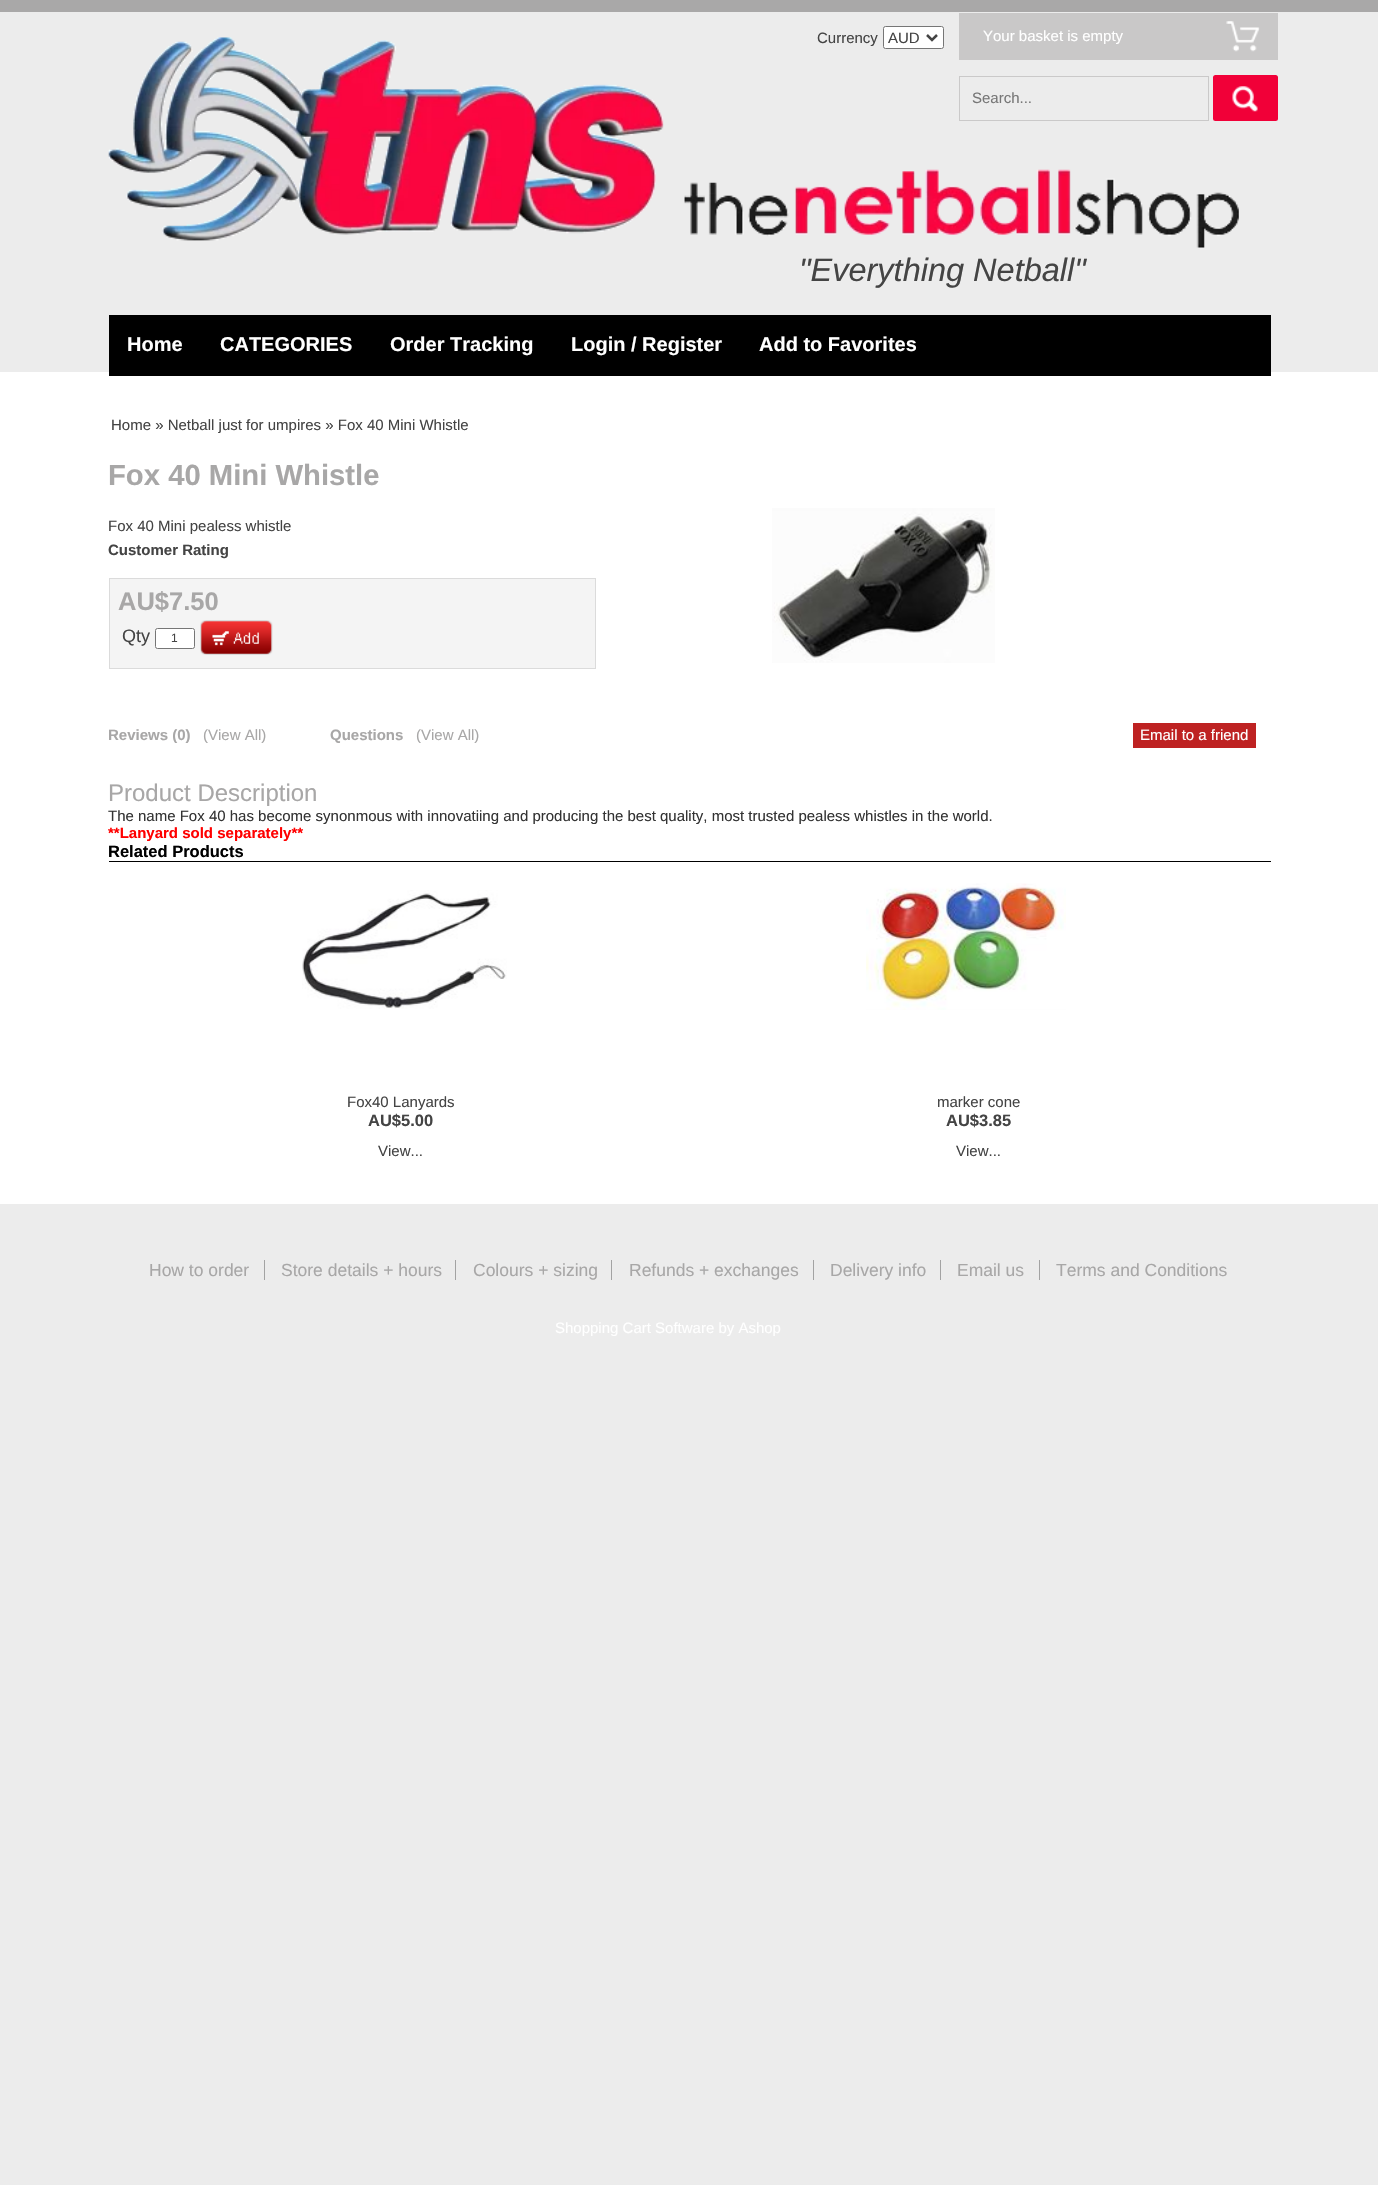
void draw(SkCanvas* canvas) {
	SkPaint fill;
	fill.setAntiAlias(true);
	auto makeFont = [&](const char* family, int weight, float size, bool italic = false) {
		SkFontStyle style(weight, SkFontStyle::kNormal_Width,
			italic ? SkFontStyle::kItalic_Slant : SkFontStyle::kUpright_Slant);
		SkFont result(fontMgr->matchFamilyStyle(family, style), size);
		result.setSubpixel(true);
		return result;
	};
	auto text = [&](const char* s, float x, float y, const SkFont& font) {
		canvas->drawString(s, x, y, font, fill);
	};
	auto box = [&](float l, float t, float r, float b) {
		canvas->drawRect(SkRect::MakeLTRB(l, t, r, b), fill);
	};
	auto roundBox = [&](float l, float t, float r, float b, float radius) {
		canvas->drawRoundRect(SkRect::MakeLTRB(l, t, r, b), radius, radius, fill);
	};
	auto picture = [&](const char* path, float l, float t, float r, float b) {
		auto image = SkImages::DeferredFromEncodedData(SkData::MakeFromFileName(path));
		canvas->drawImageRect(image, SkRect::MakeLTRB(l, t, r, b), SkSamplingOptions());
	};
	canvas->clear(0xFFECECEC);
	fill.setColor(0xFFA9A8A8);
	box(0, 0, 1378, 12);
	fill.setColor(0xFFFFFFFF);
	box(0, 372, 1378, 1204);
	picture("image2.png", 108, 37, 1239, 248);
	canvas->drawRoundRect(SkRect::MakeLTRB(883.5f, 26.5f, 943.5f, 48.5f), 2, 2, fill);
	fill.setStyle(SkPaint::kStroke_Style);
	fill.setStrokeWidth(1);
	fill.setColor(0xFF767676);
	canvas->drawRoundRect(SkRect::MakeLTRB(883.5f, 26.5f, 943.5f, 48.5f), 2, 2, fill);
	fill.setStrokeWidth(2.5f);
	fill.setColor(0xFF444444);
	canvas->drawPath(SkPathBuilder().moveTo(927, 35).lineTo(932, 40).lineTo(937, 35).detach(), fill);
	fill.setStyle(SkPaint::kFill_Style);
	fill.setColor(0xFFC9C8C8);
	box(959, 13, 1278, 60);
	picture("image0.png", 1226, 21, 1260, 52);
	fill.setStyle(SkPaint::kStroke_Style);
	fill.setStrokeWidth(1);
	fill.setColor(0xFFCAC9C9);
	canvas->drawRect(SkRect::MakeLTRB(959.5f, 76.5f, 1208.5f, 120.5f), fill);
	fill.setStyle(SkPaint::kFill_Style);
	fill.setColor(0xFFF10038);
	roundBox(1213, 75, 1278, 121, 2.5f);
	picture("image1.png", 1232, 86, 1258, 112);
	fill.setColor(0xFF000000);
	box(109, 315, 1271, 376);
	fill.setColor(0xFFF4F4F4);
	canvas->drawRect(SkRect::MakeLTRB(109.5f, 578.5f, 595.5f, 668.5f), fill);
	fill.setStyle(SkPaint::kStroke_Style);
	fill.setColor(0xFFDBDBDB);
	canvas->drawRect(SkRect::MakeLTRB(109.5f, 578.5f, 595.5f, 668.5f), fill);
	fill.setStyle(SkPaint::kFill_Style);
	fill.setColor(0xFFFFFFFF);
	canvas->drawRoundRect(SkRect::MakeLTRB(155.5f, 628.5f, 194.5f, 648.5f), 2, 2, fill);
	fill.setStyle(SkPaint::kStroke_Style);
	fill.setColor(0xFF767676);
	canvas->drawRoundRect(SkRect::MakeLTRB(155.5f, 628.5f, 194.5f, 648.5f), 2, 2, fill);
	picture("image3.png", 200, 620, 273, 655);
	picture("image4.png", 772, 508, 995, 663);
	fill.setStyle(SkPaint::kFill_Style);
	fill.setColor(0xFFBE2222);
	box(1133, 723, 1256, 748);
	fill.setColor(0xFF000000);
	box(109, 861, 1271, 862);
	picture("image5.png", 302, 890, 507, 1009);
	picture("image6.png", 866, 883, 1066, 1010);
	fill.setColor(0xFFA3A3A3);
	box(264, 1260, 265, 1280);
	box(455, 1260, 456, 1280);
	box(611, 1260, 612, 1280);
	box(813, 1260, 814, 1280);
	box(940, 1260, 941, 1280);
	box(1039, 1260, 1040, 1280);
	auto font1 = makeFont("Liberation Sans", 400, 15);
	fill.setColor(0xFF444444);
	text("Currency", 817, 43, font1);
	text("AUD", 888, 43, font1);
	fill.setColor(0xFFFFFFFF);
	text("Your basket is empty", 983, 41, font1);
	fill.setColor(0xFF777777);
	text("Search...", 972, 103, font1);
	auto font2 = makeFont("Liberation Sans", 400, 32.5f, true);
	fill.setColor(0xFF444444);
	text("\"Everything Netball\"", 799, 281, font2);
	auto font3 = makeFont("Liberation Sans", 700, 20);
	fill.setColor(0xFFFFFFFF);
	text("Home", 127, 351, font3);
	text("CATEGORIES", 220, 351, font3);
	text("Order Tracking", 390, 351, font3);
	text("Login / Register", 571, 351, font3);
	text("Add to Favorites", 759, 351, font3);
	fill.setColor(0xFF444444);
	text("Home » Netball just for umpires » Fox 40 Mini Whistle", 111, 430, font1);
	auto font4 = makeFont("Liberation Sans", 700, 29.25f);
	fill.setColor(0xFFA8A7A7);
	text("Fox 40 Mini Whistle", 108, 485, font4);
	fill.setColor(0xFF444444);
	text("Fox 40 Mini pealess whistle", 108, 531, font1);
	auto font5 = makeFont("Liberation Sans", 700, 15);
	text("Customer Rating", 108, 555, font5);
	auto font6 = makeFont("Liberation Sans", 700, 25.5f);
	fill.setColor(0xFFA8A7A7);
	text("AU$7.50", 118, 610, font6);
	auto font7 = makeFont("Liberation Sans", 400, 18);
	fill.setColor(0xFF444444);
	text("Qty", 122, 642, font7);
	auto font8 = makeFont("Liberation Sans", 400, 12);
	text("1", 171, 642, font8);
	fill.setColor(0xFFA8A7A7);
	text("Reviews (0)", 108, 740, font5);
	text("(View All)", 203, 740, font1);
	text("Questions", 330, 740, font5);
	text("(View All)", 416, 740, font1);
	fill.setColor(0xFFFFFFFF);
	text("Email to a friend", 1140, 740, font1);
	auto font9 = makeFont("Liberation Sans", 400, 24);
	fill.setColor(0xFFA8A7A7);
	text("Product Description", 108, 801, font9);
	fill.setColor(0xFF333333);
	text("The name Fox 40 has become synonmous with innovatiing and producing the best quality, most trusted pealess whistles in the world.", 108, 821, font1);
	fill.setColor(0xFFFF0000);
	text("**Lanyard sold separately**", 108, 838, font5);
	auto font10 = makeFont("Liberation Sans", 700, 16.5f);
	fill.setColor(0xFF000000);
	text("Related Products", 108, 857, font10);
	fill.setColor(0xFF444444);
	text("Fox40 Lanyards", 347, 1107, font1);
	text("AU$5.00", 368, 1126, font10);
	text("View...", 378, 1156, font1);
	text("marker cone", 937, 1107, font1);
	text("AU$3.85", 946, 1126, font10);
	text("View...", 956, 1156, font1);
	auto font11 = makeFont("Liberation Sans", 400, 17.5f);
	fill.setColor(0xFFA8A7A7);
	text("How to order", 149, 1276, font11);
	text("Store details + hours", 281, 1276, font11);
	text("Colours + sizing", 473, 1276, font11);
	text("Refunds + exchanges", 629, 1276, font11);
	text("Delivery info", 830, 1276, font11);
	text("Email us", 957, 1276, font11);
	text("Terms and Conditions", 1056, 1276, font11);
	fill.setColor(0xFFFFFFFF);
	text("Shopping Cart Software by Ashop", 555, 1333, font1);
}
